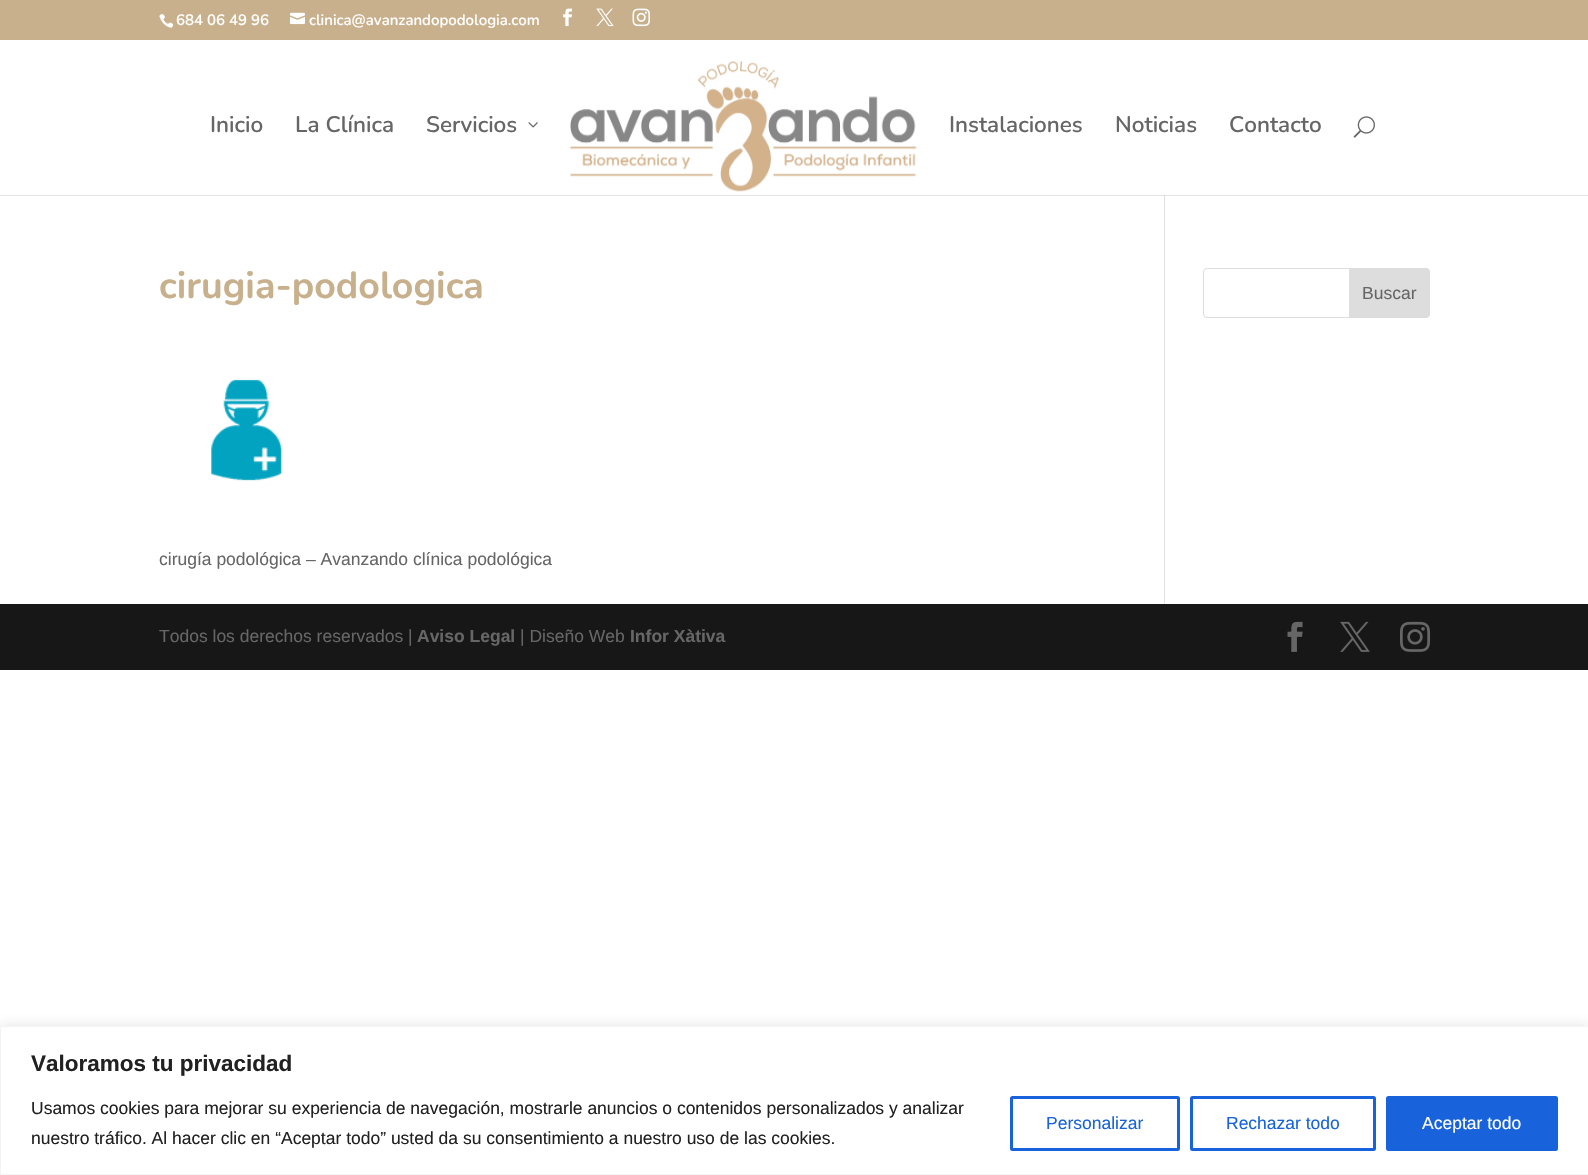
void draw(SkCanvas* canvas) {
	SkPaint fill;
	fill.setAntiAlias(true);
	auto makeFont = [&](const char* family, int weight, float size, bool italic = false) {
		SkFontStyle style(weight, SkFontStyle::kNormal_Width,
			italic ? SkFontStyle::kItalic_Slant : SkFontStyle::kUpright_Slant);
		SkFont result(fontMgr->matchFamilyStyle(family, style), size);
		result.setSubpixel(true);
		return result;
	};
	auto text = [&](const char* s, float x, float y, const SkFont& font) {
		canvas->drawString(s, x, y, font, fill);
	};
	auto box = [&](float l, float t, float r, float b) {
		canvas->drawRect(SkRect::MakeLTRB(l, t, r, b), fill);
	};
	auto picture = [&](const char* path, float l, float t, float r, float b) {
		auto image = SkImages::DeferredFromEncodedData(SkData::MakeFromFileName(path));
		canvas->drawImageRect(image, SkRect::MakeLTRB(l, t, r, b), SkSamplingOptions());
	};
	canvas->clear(0xFFFFFFFF);
	fill.setColor(0xFFC8B08C);
	box(0, 0, 1588, 40);
	picture("image0.png", 159, 14, 174, 28);
	picture("image1.png", 290, 12, 305, 25);
	picture("image2.png", 563, 8, 572, 27);
	picture("image3.png", 596, 8, 614, 27);
	picture("image4.png", 632, 8, 650, 27);
	fill.setColor(0xFFE2E2E2);
	box(1164, 195, 1165, 604);
	fill.setColor(0x1A000000);
	canvas->drawPath(SkPathBuilder().moveTo(0, 195).lineTo(0, 196).lineTo(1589, 196).lineTo(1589, 41).lineTo(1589, 195).close().detach(), fill);
	picture("image5.png", 528, 122, 538, 128);
	picture("image6.png", 570, 61, 917, 192);
	picture("image7.png", 1353, 116, 1375, 138);
	picture("image8.png", 211, 379, 282, 481);
	fill.setStyle(SkPaint::kStroke_Style);
	fill.setStrokeWidth(1);
	fill.setColor(0xFFDDDDDD);
	canvas->drawRoundRect(SkRect::MakeLTRB(1203.5f, 268.5f, 1429.5f, 317.5f), 3.5f, 3.5f, fill);
	fill.setStyle(SkPaint::kFill_Style);
	canvas->drawPath(SkPathBuilder().moveTo(1349.5f, 268.5f).lineTo(1426, 268.5f).cubicTo(1428, 268.5f, 1429.5f, 270, 1429.5f, 272).lineTo(1429.5f, 314).cubicTo(1429.5f, 316, 1428, 317.5f, 1426, 317.5f).lineTo(1349.5f, 317.5f).close().detach(), fill);
	fill.setStyle(SkPaint::kStroke_Style);
	canvas->drawPath(SkPathBuilder().moveTo(1349.5f, 268.5f).lineTo(1426, 268.5f).cubicTo(1428, 268.5f, 1429.5f, 270, 1429.5f, 272).lineTo(1429.5f, 314).cubicTo(1429.5f, 316, 1428, 317.5f, 1426, 317.5f).lineTo(1349.5f, 317.5f).close().detach(), fill);
	fill.setStyle(SkPaint::kFill_Style);
	fill.setColor(0xFF171717);
	box(0, 604, 1588, 670);
	picture("image9.png", 1287, 621, 1303, 652);
	picture("image10.png", 1340, 621, 1370, 652);
	picture("image11.png", 1400, 621, 1430, 652);
	fill.setColor(0x4DACABAB);
	fill.setMaskFilter(SkMaskFilter::MakeBlur(kNormal_SkBlurStyle, 6));
	canvas->drawRect(SkRect::MakeLTRB(0, 1025, 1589, 1174), fill);
	fill.setMaskFilter(nullptr);
	fill.setColor(0xFFFFFFFF);
	canvas->drawRect(SkRect::MakeLTRB(0.5f, 1026.5f, 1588.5f, 1174.5f), fill);
	fill.setStyle(SkPaint::kStroke_Style);
	fill.setColor(0xFFF4F4F4);
	canvas->drawRect(SkRect::MakeLTRB(0.5f, 1026.5f, 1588.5f, 1174.5f), fill);
	fill.setStrokeWidth(3);
	fill.setColor(0xFF1863DC);
	canvas->drawRoundRect(SkRect::MakeLTRB(1011.5f, 1097.5f, 1178.5f, 1149.5f), 1, 1, fill);
	canvas->drawRoundRect(SkRect::MakeLTRB(1191.5f, 1097.5f, 1374.5f, 1149.5f), 1, 1, fill);
	fill.setStyle(SkPaint::kFill_Style);
	canvas->drawRoundRect(SkRect::MakeLTRB(1387.5f, 1097.5f, 1556.5f, 1149.5f), 1, 1, fill);
	fill.setStyle(SkPaint::kStroke_Style);
	canvas->drawRoundRect(SkRect::MakeLTRB(1387.5f, 1097.5f, 1556.5f, 1149.5f), 1, 1, fill);
	auto font1 = makeFont("Nunito", 600, 15);
	fill.setStyle(SkPaint::kFill_Style);
	fill.setColor(0xFFFFFFFF);
	text("684 06 49 96", 176, 25, font1);
	text("clinica@avanzandopodologia.com", 309, 25, font1);
	auto font2 = makeFont("Nunito", 600, 22.5f);
	fill.setColor(0xFF666666);
	text("Inicio", 210, 132, font2);
	text("La Clínica", 295, 132, font2);
	text("Servicios", 426, 132, font2);
	text("Instalaciones", 949, 132, font2);
	text("Noticias", 1115, 132, font2);
	text("Contacto", 1229, 132, font2);
	auto font3 = makeFont("Nunito", 700, 37.5f);
	fill.setColor(0xFFC8B08C);
	text("cirugia-podologica", 159, 298, font3);
	auto font4 = makeFont("Liberation Sans", 400, 17.5f);
	fill.setColor(0xFF666666);
	text("cirugía podológica – Avanzando clínica podológica", 159, 565, font4);
	text("Buscar", 1362, 299, font4);
	text("Todos los derechos reservados |", 159, 642, font4);
	auto font5 = makeFont("Liberation Sans", 700, 17.5f);
	text("Aviso Legal", 417, 642, font5);
	text("| Diseño Web", 520, 642, font4);
	text("Infor Xàtiva", 630, 642, font5);
	auto font6 = makeFont("Liberation Sans", 700, 22.5f);
	fill.setColor(0xFF212121);
	text("Valoramos tu privacidad", 31, 1071, font6);
	text("Usamos cookies para mejorar su experiencia de navegación, mostrarle anuncios o contenidos personalizados y analizar", 31, 1114, font4);
	text("nuestro tráfico. Al hacer clic en “Aceptar todo” usted da su consentimiento a nuestro uso de las cookies.", 31, 1144, font4);
	fill.setColor(0xFF1863DC);
	text("Personalizar", 1046, 1129, font4);
	text("Rechazar todo", 1226, 1129, font4);
	fill.setColor(0xFFFFFFFF);
	text("Aceptar todo", 1422, 1129, font4);
}
